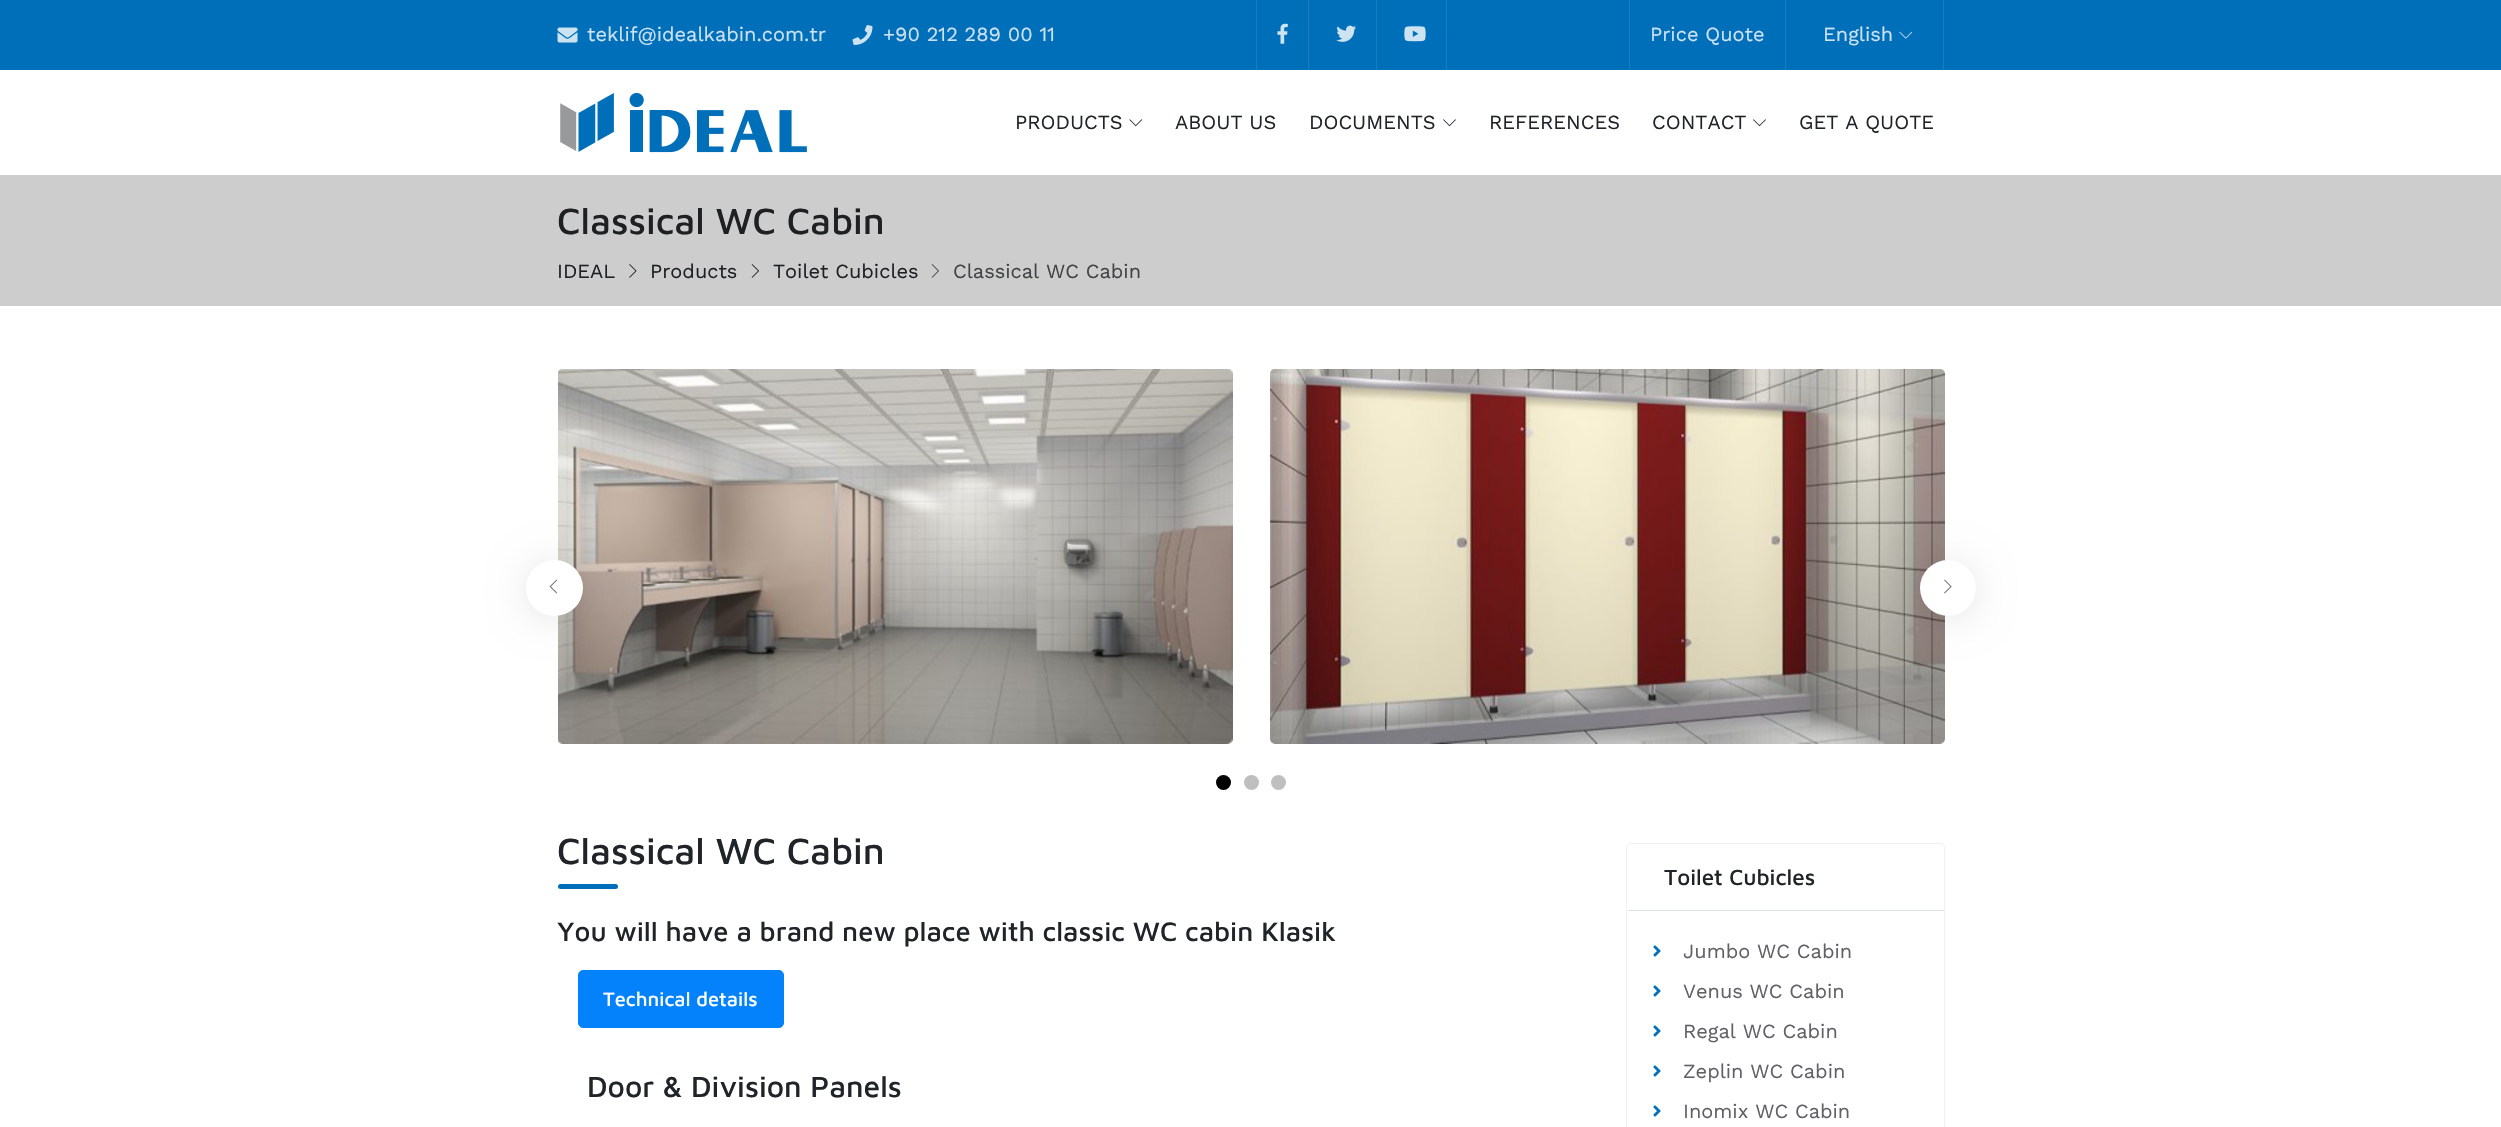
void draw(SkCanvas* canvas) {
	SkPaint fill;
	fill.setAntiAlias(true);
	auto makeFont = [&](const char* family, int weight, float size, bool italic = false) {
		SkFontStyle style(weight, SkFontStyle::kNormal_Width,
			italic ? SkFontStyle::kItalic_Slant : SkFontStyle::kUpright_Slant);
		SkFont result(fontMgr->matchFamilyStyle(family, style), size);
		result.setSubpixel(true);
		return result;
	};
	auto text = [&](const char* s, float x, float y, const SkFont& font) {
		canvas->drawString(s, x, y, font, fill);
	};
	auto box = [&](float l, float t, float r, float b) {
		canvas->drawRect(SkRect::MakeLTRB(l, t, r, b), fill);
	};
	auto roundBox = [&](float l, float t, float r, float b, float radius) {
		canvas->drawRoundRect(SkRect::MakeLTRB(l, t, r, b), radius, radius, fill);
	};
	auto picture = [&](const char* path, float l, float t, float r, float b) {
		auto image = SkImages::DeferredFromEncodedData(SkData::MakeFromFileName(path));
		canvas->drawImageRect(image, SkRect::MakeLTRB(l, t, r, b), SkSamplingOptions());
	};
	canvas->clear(0xFFFFFFFF);
	fill.setColor(0xFF006FBA);
	box(0, 0, 2501, 70);
	picture("image0.png", 557, 27, 578, 43);
	picture("image1.png", 852, 25, 873, 45);
	fill.setColor(0xFF1A7DC1);
	box(1308, 0, 1309, 70);
	box(1256, 0, 1257, 70);
	picture("image2.png", 1277, 23, 1288, 44);
	box(1376, 0, 1377, 70);
	picture("image3.png", 1336, 25, 1357, 42);
	box(1446, 0, 1447, 70);
	picture("image4.png", 1404, 26, 1426, 42);
	box(1785, 0, 1786, 70);
	box(1629, 0, 1630, 70);
	box(1943, 0, 1944, 70);
	picture("image5.png", 1899, 31, 1913, 39);
	picture("image6.png", 560, 93, 807, 153);
	picture("image7.png", 1129, 119, 1143, 127);
	picture("image8.png", 1443, 119, 1456, 127);
	picture("image8.png", 1753, 119, 1766, 127);
	fill.setColor(0xFFCDCDCD);
	box(0, 175, 2501, 306);
	picture("image9.png", 629, 264, 637, 278);
	picture("image10.png", 751, 264, 760, 278);
	picture("image11.png", 931, 264, 939, 278);
	picture("image12.png", 558, 369, 1233, 744);
	picture("image13.png", 1270, 369, 1945, 744);
	fill.setColor(0x1A000000);
	fill.setMaskFilter(SkMaskFilter::MakeBlur(kNormal_SkBlurStyle, 19));
	canvas->drawRoundRect(SkRect::MakeLTRB(526, 563, 583, 619), 28, 28, fill);
	fill.setMaskFilter(nullptr);
	fill.setColor(0xFFFFFFFF);
	roundBox(526, 560, 583, 616, 28);
	picture("image14.png", 549, 579, 557, 594);
	fill.setColor(0x1A000000);
	fill.setMaskFilter(SkMaskFilter::MakeBlur(kNormal_SkBlurStyle, 19));
	canvas->drawRoundRect(SkRect::MakeLTRB(1920, 563, 1976, 619), 28, 28, fill);
	fill.setMaskFilter(nullptr);
	fill.setColor(0xFFFFFFFF);
	canvas->drawCircle(1948, 588, 28, fill);
	picture("image15.png", 1944, 579, 1952, 594);
	fill.setColor(0xFF000000);
	canvas->drawCircle(1223.5f, 782.5f, 7.5f, fill);
	fill.setColor(0xFFBFBFBF);
	canvas->drawCircle(1251.5f, 782.5f, 7.5f, fill);
	canvas->drawCircle(1278.5f, 782.5f, 7.5f, fill);
	fill.setColor(0xFF006FBA);
	roundBox(558, 884, 618, 889, 2.5f);
	fill.setColor(0xFF0482FC);
	canvas->drawRoundRect(SkRect::MakeLTRB(578.5f, 970.5f, 783.5f, 1027.5f), 4.5f, 4.5f, fill);
	fill.setStyle(SkPaint::kStroke_Style);
	fill.setStrokeWidth(1);
	canvas->drawRoundRect(SkRect::MakeLTRB(578.5f, 970.5f, 783.5f, 1027.5f), 4.5f, 4.5f, fill);
	fill.setColor(0xFFF0F0F2);
	canvas->drawRoundRect(SkRect::MakeLTRB(1626.5f, 843.5f, 1944.5f, 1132.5f), 4.5f, 4.5f, fill);
	fill.setStyle(SkPaint::kFill_Style);
	fill.setColor(0xFFFFFFFF);
	canvas->drawPath(SkPathBuilder().moveTo(1632, 844).lineTo(1940, 844).cubicTo(1942, 844, 1944, 846, 1944, 848).lineTo(1944, 911).lineTo(1628, 911).lineTo(1628, 848).cubicTo(1628, 846, 1630, 844, 1632, 844).close().detach(), fill);
	fill.setColor(0xFFDEE2E6);
	box(1628, 910, 1944, 911);
	picture("image16.png", 1653, 945, 1661, 957);
	picture("image16.png", 1653, 985, 1661, 997);
	picture("image16.png", 1653, 1025, 1661, 1037);
	picture("image16.png", 1653, 1065, 1661, 1077);
	picture("image16.png", 1653, 1105, 1661, 1117);
	auto font1 = makeFont("Work Sans", 400, 20);
	fill.setColor(0xFFCCE2F1);
	text("teklif@idealkabin.com.tr", 587, 41, font1);
	text("+90 212 289 00 11", 883, 41, font1);
	text("Price Quote", 1650, 41, font1);
	text("English", 1823, 41, font1);
	fill.setColor(0xFF202428);
	text("PRODUCTS", 1015, 129, font1);
	text("ABOUT US", 1175, 129, font1);
	text("DOCUMENTS", 1309, 129, font1);
	text("REFERENCES", 1489, 129, font1);
	text("CONTACT", 1652, 129, font1);
	text("GET A QUOTE", 1799, 129, font1);
	auto font2 = makeFont("Maven Pro", 500, 37.5f);
	fill.setColor(0xFF1E2022);
	text("Classical WC Cabin", 557, 234, font2);
	text("IDEAL", 557, 278, font1);
	text("Products", 650, 278, font1);
	text("Toilet Cubicles", 773, 278, font1);
	fill.setColor(0xFF414344);
	text("Classical WC Cabin", 953, 278, font1);
	fill.setColor(0xFF202428);
	text("Classical WC Cabin", 557, 864, font2);
	auto font3 = makeFont("Maven Pro", 500, 27.5f);
	text("You will have a brand new place with classic WC cabin Klasik", 557, 941, font3);
	auto font4 = makeFont("Maven Pro", 500, 20);
	fill.setColor(0xFFFFFFFF);
	text("Technical details", 603, 1006, font4);
	auto font5 = makeFont("Maven Pro", 500, 30);
	fill.setColor(0xFF202428);
	text("Door & Division Panels", 587, 1097, font5);
	auto font6 = makeFont("Maven Pro", 500, 22.5f);
	text("Toilet Cubicles", 1664, 885, font6);
	fill.setColor(0xFF606065);
	text("Jumbo WC Cabin", 1683, 958, font1);
	text("Venus WC Cabin", 1683, 998, font1);
	text("Regal WC Cabin", 1683, 1038, font1);
	text("Zeplin WC Cabin", 1683, 1078, font1);
	text("Inomix WC Cabin", 1683, 1118, font1);
}
